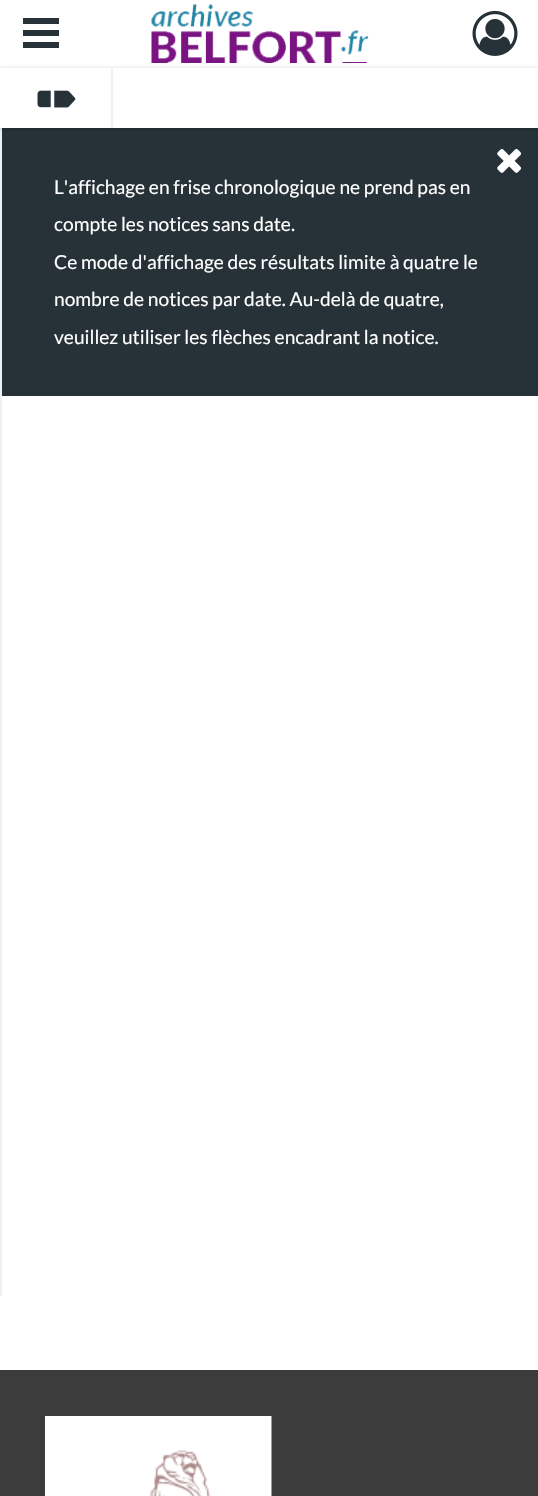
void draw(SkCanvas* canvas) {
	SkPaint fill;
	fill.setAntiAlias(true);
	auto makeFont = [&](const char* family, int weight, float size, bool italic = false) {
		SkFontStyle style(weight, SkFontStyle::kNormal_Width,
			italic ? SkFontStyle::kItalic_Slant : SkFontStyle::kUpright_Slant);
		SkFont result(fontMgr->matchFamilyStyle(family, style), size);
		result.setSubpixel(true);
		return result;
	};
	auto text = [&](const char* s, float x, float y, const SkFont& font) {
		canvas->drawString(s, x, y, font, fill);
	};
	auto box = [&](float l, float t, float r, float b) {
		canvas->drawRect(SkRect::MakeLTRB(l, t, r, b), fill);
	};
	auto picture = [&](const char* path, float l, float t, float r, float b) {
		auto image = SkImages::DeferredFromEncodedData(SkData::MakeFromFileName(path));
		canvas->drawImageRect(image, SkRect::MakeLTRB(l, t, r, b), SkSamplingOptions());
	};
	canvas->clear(0xFFFFFFFF);
	fill.setColor(0xFF263238);
	box(23, 18, 59, 24);
	box(23, 30, 59, 36);
	box(23, 42, 59, 48);
	picture("image0.png", 151, 4, 369, 63);
	picture("image1.png", 472, 10, 518, 56);
	fill.setColor(0xFFECF1F4);
	box(0, 128, 2, 1296);
	fill.setColor(0xFF263238);
	box(2, 128, 538, 396);
	fill.setColor(0x40000000);
	fill.setMaskFilter(SkMaskFilter::MakeBlur(kNormal_SkBlurStyle, 2));
	canvas->drawRect(SkRect::MakeLTRB(0, 69, 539, 129), fill);
	fill.setMaskFilter(nullptr);
	fill.setColor(0xFFFFFFFF);
	box(0, 68, 538, 128);
	fill.setColor(0xFFECF1F4);
	box(111, 68, 113, 128);
	picture("image2.png", 37, 90, 76, 108);
	picture("image3.png", 497, 149, 522, 173);
	fill.setColor(0xFF3C3C3C);
	box(0, 1370, 538, 1496);
	picture("image4.png", 45, 1416, 272, 1496);
	auto font1 = makeFont("Lato", 400, 19.2f);
	fill.setColor(0xFFFFFFFF);
	text("L'affichage en frise chronologique ne prend pas en", 54, 194, font1);
	text("compte les notices sans date.", 54, 231, font1);
	text("Ce mode d'affichage des résultats limite à quatre le", 54, 269, font1);
	text("nombre de notices par date. Au-delà de quatre,", 54, 306, font1);
	text("veuillez utiliser les flèches encadrant la notice.", 54, 344, font1);
}
